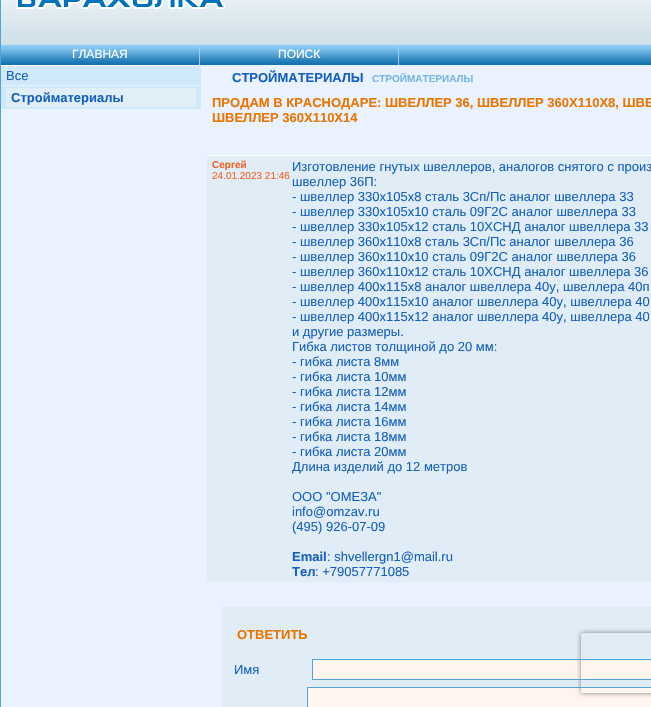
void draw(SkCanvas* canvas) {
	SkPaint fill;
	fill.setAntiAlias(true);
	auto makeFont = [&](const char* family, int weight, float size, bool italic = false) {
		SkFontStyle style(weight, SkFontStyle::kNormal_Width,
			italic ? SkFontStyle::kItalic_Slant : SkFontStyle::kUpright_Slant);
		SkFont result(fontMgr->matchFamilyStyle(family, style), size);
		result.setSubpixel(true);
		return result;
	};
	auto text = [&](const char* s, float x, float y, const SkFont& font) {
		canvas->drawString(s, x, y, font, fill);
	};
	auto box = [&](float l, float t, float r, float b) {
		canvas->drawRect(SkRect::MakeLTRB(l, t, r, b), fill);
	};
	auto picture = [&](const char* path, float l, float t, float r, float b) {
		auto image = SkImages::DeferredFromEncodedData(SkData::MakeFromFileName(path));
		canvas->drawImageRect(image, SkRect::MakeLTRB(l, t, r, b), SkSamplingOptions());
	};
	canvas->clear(0xFFEBF2FF);
	fill.setStyle(SkPaint::kStroke_Style);
	fill.setStrokeWidth(1);
	fill.setColor(0xFF50A4DA);
	canvas->drawRect(SkRect::MakeLTRB(0.5f, -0.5f, 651.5f, 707.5f), fill);
	picture("image0.png", 1, 0, 651, 45);
	picture("image1.png", 16, 0, 226, 9);
	picture("image2.png", 1, 45, 651, 65);
	fill.setStyle(SkPaint::kFill_Style);
	fill.setColor(0xFF99CCFF);
	box(199, 45, 200, 65);
	box(398, 45, 399, 65);
	fill.setColor(0xFFCFE9FA);
	box(1, 66, 201, 110);
	fill.setColor(0xFFFFFFFF);
	box(1, 65, 201, 66);
	fill.setStyle(SkPaint::kStroke_Style);
	fill.setPathEffect(SkDashPathEffect::Make({{1, 1}}, 0));
	canvas->drawPath(SkPathBuilder().moveTo(1, 85.5f).lineTo(201, 85.5f).detach(), fill);
	fill.setPathEffect(nullptr);
	fill.setPathEffect(SkDashPathEffect::Make({{1, 1}}, 0));
	canvas->drawPath(SkPathBuilder().moveTo(1, 109.5f).lineTo(201, 109.5f).detach(), fill);
	fill.setPathEffect(nullptr);
	fill.setStyle(SkPaint::kFill_Style);
	fill.setColor(0xFFE0EEF8);
	box(6, 88, 196, 107);
	fill.setColor(0xFFE0EDF6);
	box(207, 156, 651, 582);
	fill.setColor(0xFFFFFFFF);
	box(207, 155, 651, 156);
	fill.setColor(0xFFE0EDF6);
	box(222, 607, 651, 707);
	fill.setColor(0xFFFFF5EE);
	canvas->drawRect(SkRect::MakeLTRB(312.5f, 659.5f, 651.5f, 679.5f), fill);
	fill.setStyle(SkPaint::kStroke_Style);
	fill.setColor(0xFF50A4DA);
	canvas->drawRect(SkRect::MakeLTRB(312.5f, 659.5f, 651.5f, 679.5f), fill);
	fill.setStyle(SkPaint::kFill_Style);
	fill.setColor(0xFFFFF5EE);
	canvas->drawRect(SkRect::MakeLTRB(307.5f, 687.5f, 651.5f, 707.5f), fill);
	fill.setStyle(SkPaint::kStroke_Style);
	fill.setColor(0xFF50A4DA);
	canvas->drawRect(SkRect::MakeLTRB(307.5f, 687.5f, 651.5f, 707.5f), fill);
	canvas->save();
	canvas->clipPath(SkPathBuilder(SkPathFillType::kEvenOdd).moveTo(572, 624).lineTo(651, 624).lineTo(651, 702).lineTo(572, 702).close().moveTo(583, 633).lineTo(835, 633).cubicTo(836, 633, 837, 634, 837, 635).lineTo(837, 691).cubicTo(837, 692, 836, 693, 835, 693).lineTo(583, 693).cubicTo(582, 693, 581, 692, 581, 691).lineTo(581, 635).cubicTo(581, 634, 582, 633, 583, 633).close().detach(), true);
	fill.setStyle(SkPaint::kFill_Style);
	fill.setColor(0xFF808080);
	fill.setMaskFilter(SkMaskFilter::MakeBlur(kNormal_SkBlurStyle, 2.5f));
	canvas->drawRoundRect(SkRect::MakeLTRB(581, 633, 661, 693), 2, 2, fill);
	fill.setMaskFilter(nullptr);
	canvas->restore();
	auto font1 = makeFont("Liberation Sans", 400, 12);
	fill.setColor(0xFFFFFFFF);
	text("ГЛАВНАЯ", 72, 58, font1);
	text("ПОИСК", 278, 58, font1);
	auto font2 = makeFont("Liberation Sans", 400, 13);
	fill.setColor(0xFF1560BD);
	text("Все", 6, 80, font2);
	auto font3 = makeFont("Liberation Sans", 700, 13);
	text("Стройматериалы", 11, 102, font3);
	text("СТРОЙМАТЕРИАЛЫ", 232, 82, font3);
	auto font4 = makeFont("Liberation Sans", 700, 10);
	fill.setColor(0xFF79B7DF);
	text("СТРОЙМАТЕРИАЛЫ", 372, 82, font4);
	fill.setColor(0xFFEA7500);
	text("ПРОДАМ В КРАСНОДАРЕ: ШВЕЛЛЕР 36, ШВЕЛЛЕР 360Х110Х8, ШВЕ", 212, 107, font3);
	text("ШВЕЛЛЕР 360Х110Х14", 212, 122, font3);
	fill.setColor(0xFFF36223);
	text("Сергей", 212, 168, font4);
	auto font5 = makeFont("Liberation Sans", 400, 10);
	text("24.01.2023 21:46", 212, 179, font5);
	fill.setColor(0xFF1560BD);
	text("Изготовление гнутых швеллеров, аналогов снятого с произ", 292, 171, font2);
	text("швеллер 36П:", 292, 186, font2);
	text("- швеллер 330х105х8 сталь 3Сп/Пс аналог швеллера 33", 292, 201, font2);
	text("- швеллер 330х105х10 сталь 09Г2С аналог швеллера 33", 292, 216, font2);
	text("- швеллер 330х105х12 сталь 10ХСНД аналог швеллера 33", 292, 231, font2);
	text("- швеллер 360х110х8 сталь 3Сп/Пс аналог швеллера 36", 292, 246, font2);
	text("- швеллер 360х110х10 сталь 09Г2С аналог швеллера 36", 292, 261, font2);
	text("- швеллер 360х110х12 сталь 10ХСНД аналог швеллера 36", 292, 276, font2);
	text("- швеллер 400х115х8 аналог швеллера 40у, швеллера 40п", 292, 291, font2);
	text("- швеллер 400х115х10 аналог швеллера 40у, швеллера 40", 292, 306, font2);
	text("- швеллер 400х115х12 аналог швеллера 40у, швеллера 40", 292, 321, font2);
	text("и другие размеры.", 292, 336, font2);
	text("Гибка листов толщиной до 20 мм:", 292, 351, font2);
	text("- гибка листа 8мм", 292, 366, font2);
	text("- гибка листа 10мм", 292, 381, font2);
	text("- гибка листа 12мм", 292, 396, font2);
	text("- гибка листа 14мм", 292, 411, font2);
	text("- гибка листа 16мм", 292, 426, font2);
	text("- гибка листа 18мм", 292, 441, font2);
	text("- гибка листа 20мм", 292, 456, font2);
	text("Длина изделий до 12 метров", 292, 471, font2);
	text("ООО \"ОМЕЗА\"", 292, 501, font2);
	text("info@omzav.ru", 292, 516, font2);
	text("(495) 926-07-09", 292, 531, font2);
	text("Email", 292, 561, font3);
	text(": shvellergn1@mail.ru", 327, 561, font2);
	text("Тел", 292, 576, font3);
	text(": +79057771085", 315, 576, font2);
	fill.setColor(0xFFEA7500);
	text("ОТВЕТИТЬ", 237, 639, font3);
	fill.setColor(0xFF1560BD);
	text("Имя", 234, 674, font2);
}
